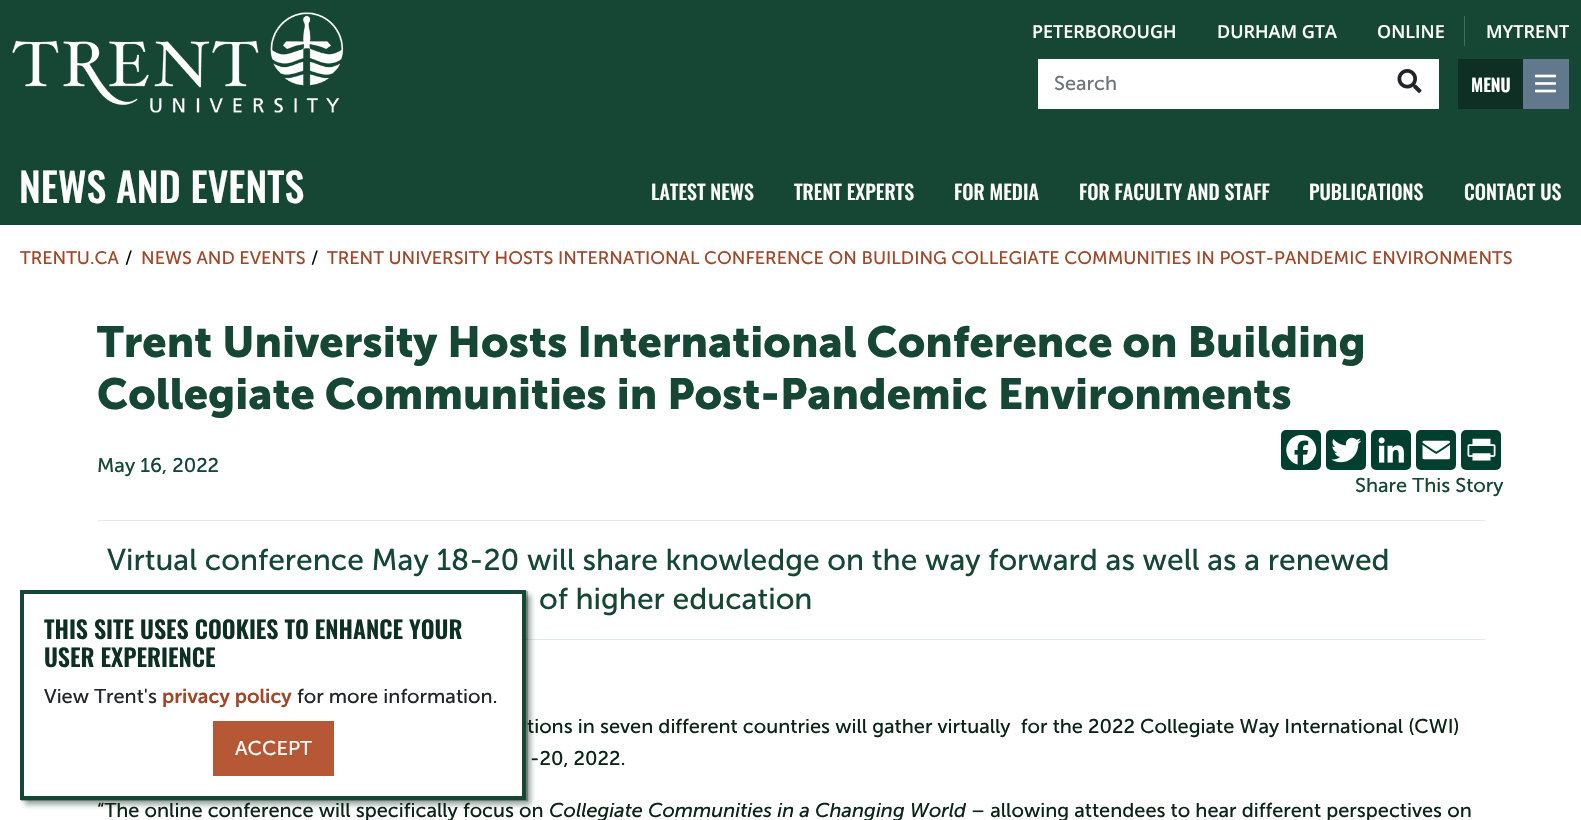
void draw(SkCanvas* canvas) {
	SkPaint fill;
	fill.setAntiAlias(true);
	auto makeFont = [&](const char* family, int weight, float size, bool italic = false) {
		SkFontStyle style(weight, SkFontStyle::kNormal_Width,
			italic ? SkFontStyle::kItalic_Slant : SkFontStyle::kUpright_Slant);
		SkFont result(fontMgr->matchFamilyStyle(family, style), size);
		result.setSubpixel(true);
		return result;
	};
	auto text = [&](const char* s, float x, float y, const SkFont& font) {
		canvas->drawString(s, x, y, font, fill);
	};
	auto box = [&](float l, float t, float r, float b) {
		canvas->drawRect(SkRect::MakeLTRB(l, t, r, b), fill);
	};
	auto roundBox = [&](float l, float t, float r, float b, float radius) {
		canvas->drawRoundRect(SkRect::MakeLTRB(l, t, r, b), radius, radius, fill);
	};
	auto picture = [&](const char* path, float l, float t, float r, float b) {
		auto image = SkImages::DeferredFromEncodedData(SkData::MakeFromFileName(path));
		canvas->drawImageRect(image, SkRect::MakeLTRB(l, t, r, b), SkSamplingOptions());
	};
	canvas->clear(0xFFFFFFFF);
	fill.setColor(0xFF154734);
	box(0, 0, 1581, 225);
	picture("image0.png", 12, 12, 344, 113);
	fill.setColor(0xFF446C5D);
	box(1464, 16, 1465, 46);
	fill.setColor(0xFFFFFFFF);
	box(1038, 59, 1439, 109);
	picture("image1.png", 1397, 69, 1422, 93);
	fill.setColor(0xFF0E2F23);
	box(1458, 59, 1523, 109);
	fill.setColor(0xFF62798D);
	box(1523, 59, 1569, 109);
	picture("image2.png", 1535, 74, 1556, 93);
	fill.setColor(0xFF003E2D);
	roundBox(1281, 430, 1321, 470, 5);
	picture("image3.png", 1286, 435, 1317, 465);
	roundBox(1326, 430, 1366, 470, 5);
	picture("image4.png", 1331, 437, 1362, 463);
	roundBox(1371, 430, 1411, 470, 5);
	picture("image5.png", 1378, 437, 1404, 463);
	roundBox(1416, 430, 1456, 470, 5);
	picture("image6.png", 1422, 440, 1450, 460);
	roundBox(1461, 430, 1501, 470, 5);
	picture("image7.png", 1467, 438, 1496, 461);
	fill.setColor(0xFFE3EAE8);
	box(98, 520, 1485, 521);
	box(526, 639, 1485, 640);
	fill.setColor(0x660E2F23);
	fill.setMaskFilter(SkMaskFilter::MakeBlur(kNormal_SkBlurStyle, 2.5f));
	canvas->drawRect(SkRect::MakeLTRB(25, 595, 531, 805), fill);
	fill.setMaskFilter(nullptr);
	fill.setColor(0x4D000000);
	fill.setMaskFilter(SkMaskFilter::MakeBlur(kNormal_SkBlurStyle, 0.5f));
	canvas->drawRect(SkRect::MakeLTRB(21, 591, 528, 801), fill);
	fill.setMaskFilter(nullptr);
	fill.setColor(0xFFFFFFFF);
	canvas->drawRect(SkRect::MakeLTRB(22, 592, 524, 798), fill);
	fill.setStyle(SkPaint::kStroke_Style);
	fill.setStrokeWidth(4);
	fill.setColor(0xFF154734);
	canvas->drawRect(SkRect::MakeLTRB(22, 592, 524, 798), fill);
	fill.setStyle(SkPaint::kFill_Style);
	fill.setColor(0xFFB65735);
	box(213, 721, 334, 776);
	auto font1 = makeFont("Open Sans", 600, 18);
	fill.setColor(0xFFFFFFFF);
	text("PETERBOROUGH", 1032, 38, font1);
	text("DURHAM GTA", 1217, 38, font1);
	text("ONLINE", 1377, 38, font1);
	text("MYTRENT", 1486, 38, font1);
	auto font2 = makeFont("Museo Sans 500", 400, 20);
	fill.setColor(0xFF6C757D);
	text("Search", 1054, 90, font2);
	auto font3 = makeFont("Oswald", 600, 17.5f);
	fill.setColor(0xFFFFFFFF);
	text("MENU", 1471, 92, font3);
	auto font4 = makeFont("Oswald", 500, 40);
	text("NEWS AND EVENTS", 19, 203, font4);
	auto font5 = makeFont("Oswald", 500, 20);
	text("LATEST NEWS", 651, 200, font5);
	text("TRENT EXPERTS", 794, 200, font5);
	text("FOR MEDIA", 954, 200, font5);
	text("FOR FACULTY AND STAFF", 1079, 200, font5);
	text("PUBLICATIONS", 1309, 200, font5);
	text("CONTACT US", 1464, 200, font5);
	auto font6 = makeFont("Museo Sans 500", 400, 18);
	fill.setColor(0xFF9E4829);
	text("TRENTU.CA", 20, 264, font6);
	fill.setColor(0xFF040C09);
	text("/", 125, 264, font6);
	fill.setColor(0xFF9E4829);
	text("NEWS AND EVENTS", 141, 264, font6);
	fill.setColor(0xFF040C09);
	text("/", 311, 264, font6);
	fill.setColor(0xFF9E4829);
	text("TRENT UNIVERSITY HOSTS INTERNATIONAL CONFERENCE ON BUILDING COLLEGIATE COMMUNITIES IN POST-PANDEMIC ENVIRONMENTS", 327, 264, font6);
	auto font7 = makeFont("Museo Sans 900", 700, 43.3f);
	fill.setColor(0xFF154734);
	text("Trent University Hosts International Conference on Building", 97, 357, font7);
	text("Collegiate Communities in Post-Pandemic Environments", 97, 409, font7);
	text("May 16, 2022", 97, 472, font2);
	text("Share This Story", 1355, 492, font2);
	auto font8 = makeFont("Museo Sans 500", 400, 30);
	text("Virtual conference May 18-20 will share knowledge on the way forward as well as a renewed", 107, 570, font8);
	text("of higher education", 539, 609, font8);
	fill.setColor(0xFF0B2318);
	text("tions in seven different countries will gather virtually  for the 2022 Collegiate Way International (CWI)", 527, 733, font2);
	text("-20, 2022.", 530, 765, font2);
	text("“The online conference will specifically focus on", 97, 817, font2);
	auto font9 = makeFont("Museo Sans 500", 400, 20, true);
	text("Collegiate Communities in a Changing World", 549, 817, font9);
	text("– allowing attendees to hear different perspectives on", 971, 817, font2);
	auto font10 = makeFont("Oswald", 600, 24);
	fill.setColor(0xFF0E2F23);
	text("THIS SITE USES COOKIES TO ENHANCE YOUR", 44, 639, font10);
	text("USER EXPERIENCE", 44, 667, font10);
	fill.setColor(0xFF212529);
	text("View Trent's", 44, 703, font2);
	auto font11 = makeFont("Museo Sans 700", 600, 20);
	fill.setColor(0xFF9E4829);
	text("privacy policy", 162, 703, font11);
	fill.setColor(0xFF212529);
	text("for more information.", 297, 703, font2);
	fill.setColor(0xFFFFFFFF);
	text("ACCEPT", 235, 755, font2);
}
